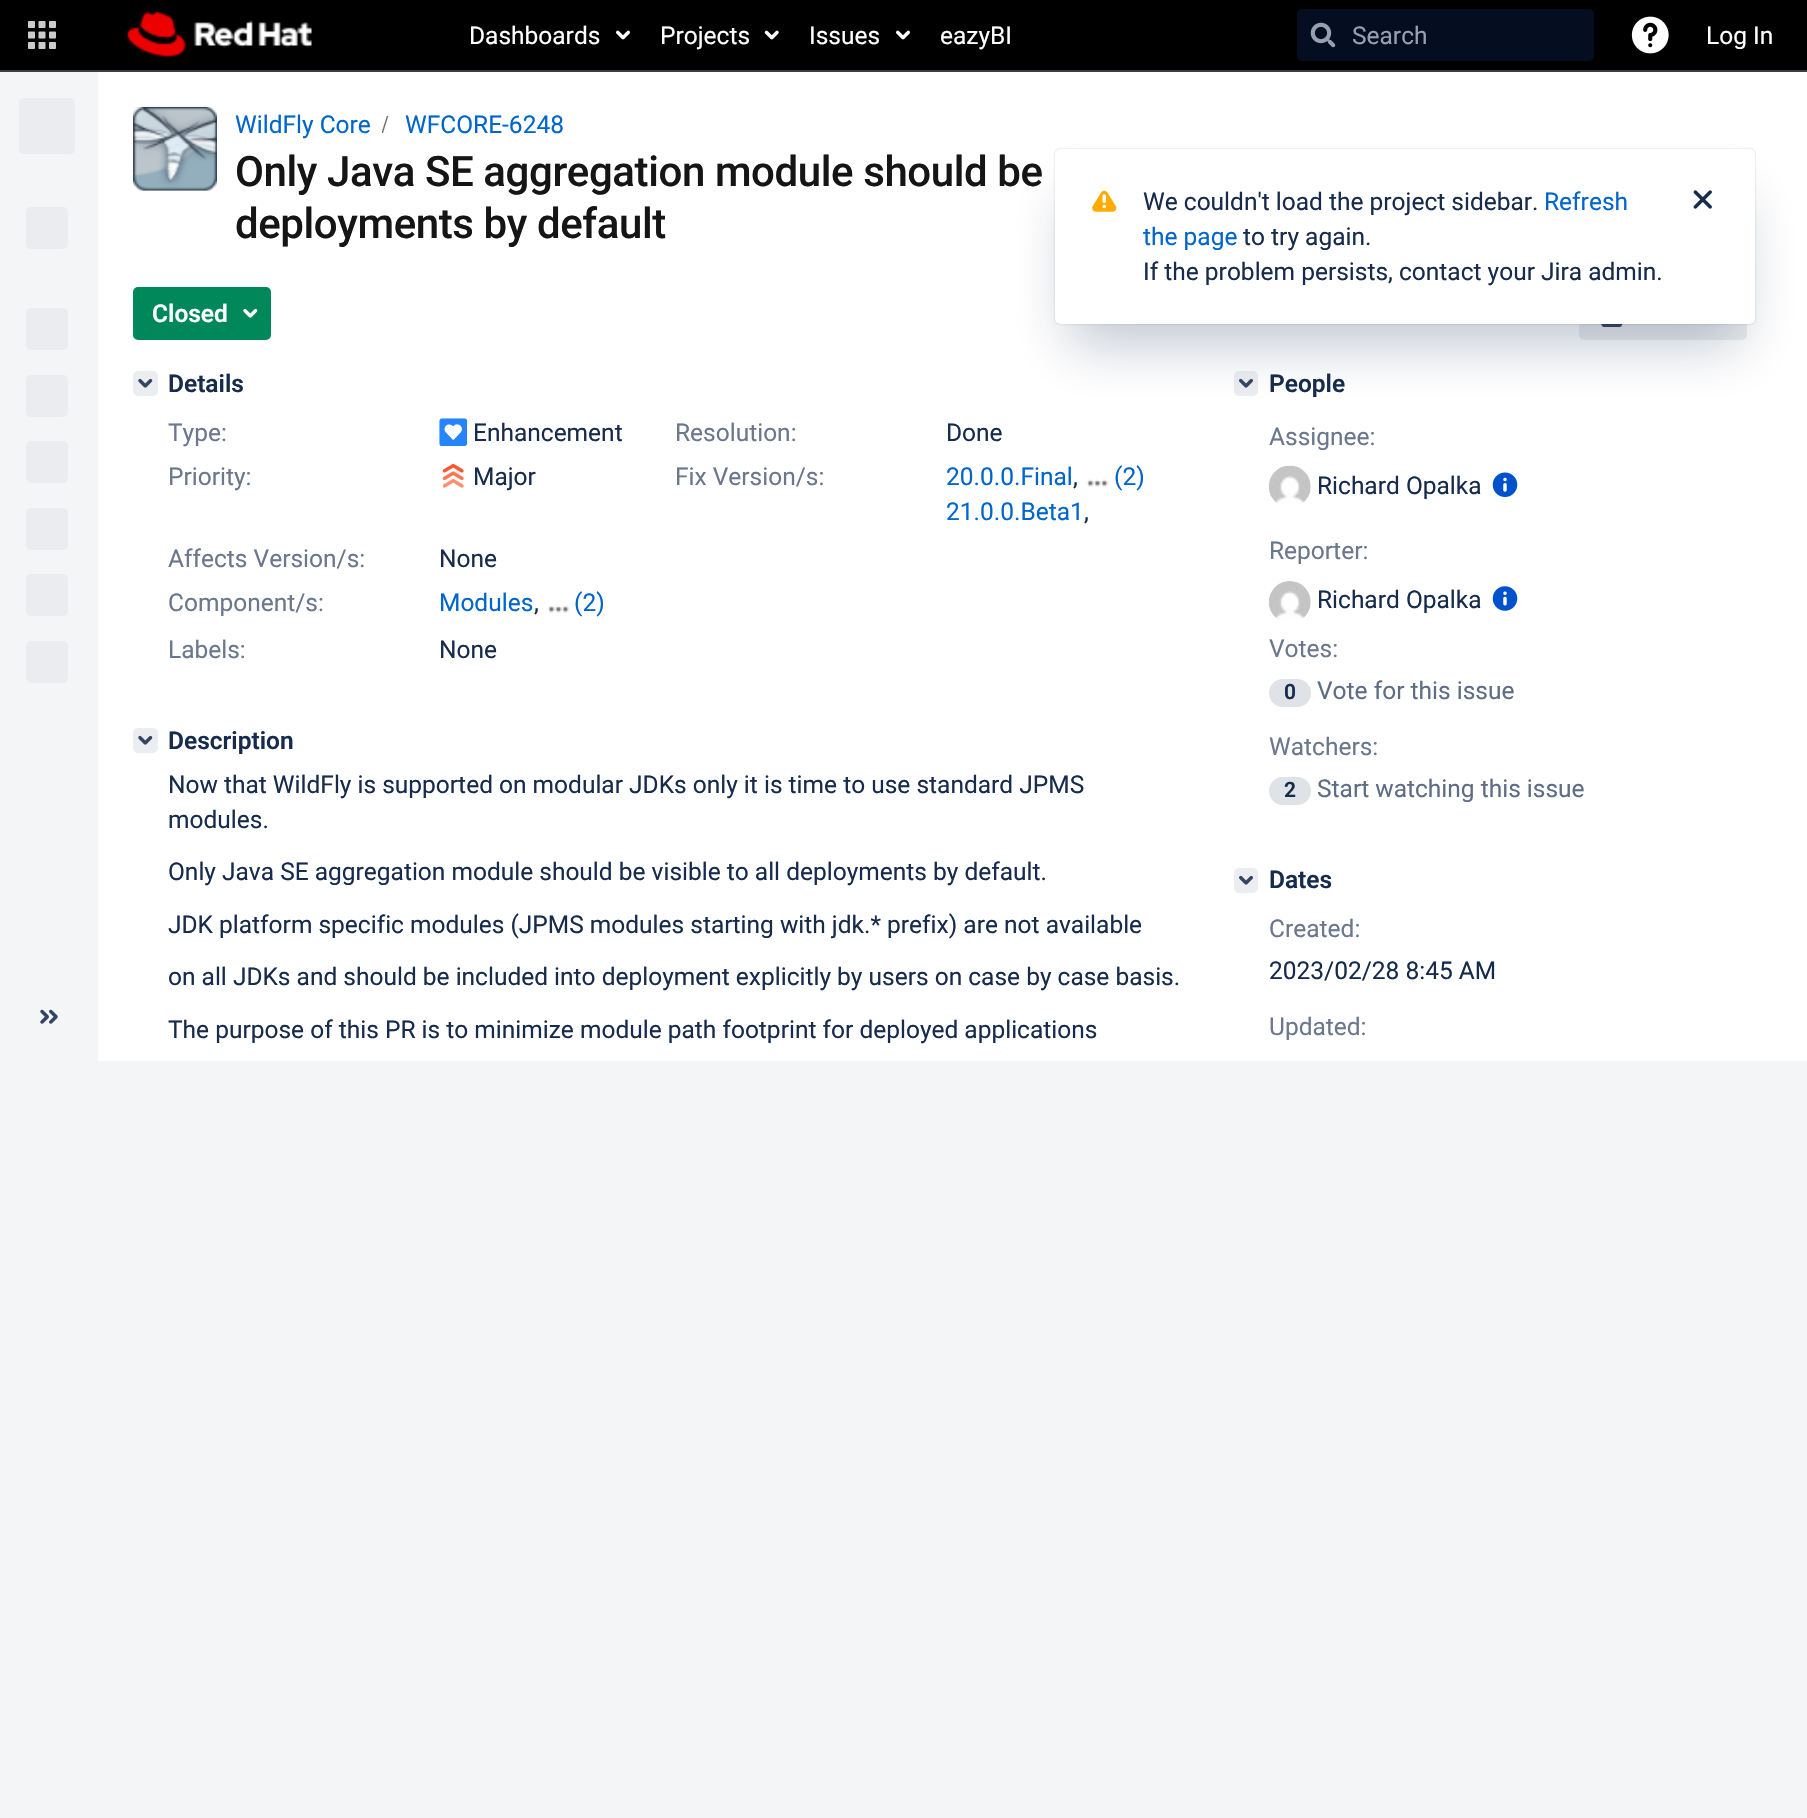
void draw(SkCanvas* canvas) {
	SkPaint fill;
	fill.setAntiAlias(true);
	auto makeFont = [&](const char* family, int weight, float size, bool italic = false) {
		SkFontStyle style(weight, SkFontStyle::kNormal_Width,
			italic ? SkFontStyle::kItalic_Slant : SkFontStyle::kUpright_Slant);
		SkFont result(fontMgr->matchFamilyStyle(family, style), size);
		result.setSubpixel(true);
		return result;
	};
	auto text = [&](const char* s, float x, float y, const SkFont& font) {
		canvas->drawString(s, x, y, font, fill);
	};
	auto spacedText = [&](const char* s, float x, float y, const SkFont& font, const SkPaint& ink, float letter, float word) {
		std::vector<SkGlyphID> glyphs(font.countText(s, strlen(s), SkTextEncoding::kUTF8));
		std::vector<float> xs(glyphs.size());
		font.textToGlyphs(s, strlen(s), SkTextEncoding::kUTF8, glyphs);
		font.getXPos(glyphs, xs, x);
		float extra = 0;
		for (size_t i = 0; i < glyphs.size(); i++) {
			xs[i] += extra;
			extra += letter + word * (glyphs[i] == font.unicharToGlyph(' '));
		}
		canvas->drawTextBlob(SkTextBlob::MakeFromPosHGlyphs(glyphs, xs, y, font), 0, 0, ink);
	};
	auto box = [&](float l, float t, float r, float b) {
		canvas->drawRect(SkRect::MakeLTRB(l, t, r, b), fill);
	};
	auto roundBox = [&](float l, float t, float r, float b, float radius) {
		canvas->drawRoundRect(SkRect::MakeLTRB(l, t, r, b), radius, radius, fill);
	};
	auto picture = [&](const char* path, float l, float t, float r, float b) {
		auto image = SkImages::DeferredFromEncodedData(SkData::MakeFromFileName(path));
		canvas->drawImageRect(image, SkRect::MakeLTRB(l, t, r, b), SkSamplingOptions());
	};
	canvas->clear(0xFFF4F5F7);
	fill.setColor(0xFF000000);
	box(0, 0, 1807, 70);
	fill.setColor(0xFF3C3F42);
	box(0, 70, 1807, 72);
	picture("image0.png", 28, 21, 56, 49);
	picture("image1.png", 127, 11, 312, 57);
	picture("image2.png", 616, 30, 630, 40);
	picture("image3.png", 764, 30, 779, 40);
	picture("image2.png", 896, 30, 910, 40);
	fill.setColor(0xFF040E20);
	roundBox(1297, 9, 1594, 61, 5);
	picture("image4.png", 1310, 22, 1336, 48);
	picture("image5.png", 1631, 16, 1669, 54);
	fill.setColor(0xFFEBECF0);
	roundBox(19, 98, 75, 154, 5);
	roundBox(26, 207, 68, 249, 5);
	roundBox(26, 308, 68, 350, 5);
	roundBox(26, 375, 68, 417, 5);
	roundBox(26, 441, 68, 483, 5);
	roundBox(26, 508, 68, 550, 5);
	roundBox(26, 574, 68, 616, 5);
	roundBox(26, 641, 68, 683, 5);
	picture("image6.png", 40, 1009, 58, 1024);
	fill.setColor(0xFFFFFFFF);
	box(98, 72, 1807, 1061);
	picture("image7.png", 133, 106, 217, 191);
	canvas->save();
	canvas->clipRect(SkRect::MakeLTRB(382, 116, 389, 133));
	fill.setColor(0xFF707070);
	canvas->drawPath(SkPathBuilder().moveTo(383, 133).lineTo(388.5f, 115.5f).lineTo(387, 115.5f).lineTo(381.5f, 133).close().detach(), fill);
	canvas->restore();
	fill.setColor(0xFF00875A);
	canvas->drawRoundRect(SkRect::MakeLTRB(134, 288, 270, 339), 4, 4, fill);
	fill.setStyle(SkPaint::kStroke_Style);
	fill.setStrokeWidth(2);
	canvas->drawRoundRect(SkRect::MakeLTRB(134, 288, 270, 339), 4, 4, fill);
	picture("image8.png", 243, 308, 258, 318);
	fill.setStyle(SkPaint::kFill_Style);
	fill.setColor(0xFFEBEDF0);
	roundBox(1579, 287, 1747, 340, 5);
	picture("image9.png", 1601, 324, 1623, 327);
	roundBox(133, 371, 158, 396, 5);
	picture("image10.png", 138, 378, 153, 388);
	picture("image11.png", 439, 418, 467, 446);
	picture("image12.png", 442, 463, 464, 488);
	picture("image13.png", 1086, 479, 1109, 487);
	picture("image14.png", 547, 605, 570, 613);
	roundBox(133, 728, 158, 753, 5);
	picture("image10.png", 138, 735, 153, 745);
	roundBox(1234, 371, 1258, 396, 5);
	picture("image15.png", 1239, 378, 1253, 388);
	picture("image16.png", 1269, 465, 1311, 504);
	picture("image17.png", 1492, 472, 1518, 497);
	picture("image18.png", 1269, 581, 1311, 619);
	picture("image19.png", 1492, 586, 1518, 611);
	fill.setColor(0xFFDFE2E6);
	roundBox(1269, 679, 1311, 707, 14);
	roundBox(1269, 777, 1311, 805, 14);
	fill.setColor(0xFFEBEDF0);
	roundBox(1234, 868, 1258, 893, 5);
	picture("image15.png", 1239, 875, 1253, 885);
	fill.setColor(0x40091E42);
	fill.setMaskFilter(SkMaskFilter::MakeBlur(kNormal_SkBlurStyle, 1));
	canvas->drawRoundRect(SkRect::MakeLTRB(1055, 149, 1755, 324), 5, 5, fill);
	fill.setMaskFilter(nullptr);
	fill.setMaskFilter(SkMaskFilter::MakeBlur(kNormal_SkBlurStyle, 28));
	canvas->drawRect(SkRect::MakeLTRB(1069, 198, 1741, 345), fill);
	fill.setMaskFilter(nullptr);
	fill.setColor(0xFFFFFFFF);
	roundBox(1055, 149, 1755, 324, 5);
	picture("image20.png", 1092, 190, 1117, 212);
	picture("image21.png", 1693, 190, 1712, 209);
	auto font1 = makeFont("Roboto", 400, 24.5f);
	text("Dashboards", 469, 44, font1);
	text("Projects", 660, 44, font1);
	text("Issues", 809, 44, font1);
	text("eazyBI", 940, 44, font1);
	fill.setColor(0xFF97A0AF);
	text("Search", 1352, 44, font1);
	fill.setColor(0xFFFFFFFF);
	text("Log In", 1706, 44, font1);
	fill.setColor(0xFF0066CC);
	text("WildFly Core", 235, 133, font1);
	text("WFCORE-6248", 405, 133, font1);
	auto font2 = makeFont("Roboto", 500, 42);
	fill.setColor(0xFF151515);
	spacedText("Only Java SE aggregation module should be", 235, 186, font2, fill, -0.4f, 0);
	spacedText("deployments by default", 235, 238, font2, fill, -0.4f, 0);
	auto font3 = makeFont("Roboto", 600, 24.5f);
	fill.setColor(0xFFFFFFFF);
	text("Closed", 152, 322, font3);
	fill.setColor(0xFF172B4D);
	text("Details", 168, 392, font3);
	fill.setColor(0xFF6B778C);
	text("Type:", 168, 441, font1);
	fill.setColor(0xFF172B4D);
	text("Enhancement", 473, 441, font1);
	fill.setColor(0xFF6B778C);
	text("Resolution:", 675, 441, font1);
	fill.setColor(0xFF172B4D);
	text("Done", 946, 441, font1);
	fill.setColor(0xFF6B778C);
	text("Priority:", 168, 485, font1);
	fill.setColor(0xFF172B4D);
	text("Major", 473, 485, font1);
	fill.setColor(0xFF6B778C);
	text("Fix Version/s:", 675, 485, font1);
	fill.setColor(0xFF0066CC);
	text("20.0.0.Final", 946, 485, font1);
	fill.setColor(0xFF172B4D);
	text(",", 1073, 485, font1);
	fill.setColor(0xFF0066CC);
	text("(2)", 1114, 485, font1);
	text("21.0.0.Beta1", 946, 520, font1);
	fill.setColor(0xFF172B4D);
	text(",", 1084, 520, font1);
	fill.setColor(0xFF6B778C);
	text("Affects Version/s:", 168, 567, font1);
	fill.setColor(0xFF172B4D);
	text("None", 439, 567, font1);
	fill.setColor(0xFF6B778C);
	text("Component/s:", 168, 611, font1);
	fill.setColor(0xFF0066CC);
	text("Modules", 439, 611, font1);
	fill.setColor(0xFF172B4D);
	text(",", 534, 611, font1);
	fill.setColor(0xFF0066CC);
	text("(2)", 574, 611, font1);
	fill.setColor(0xFF6B778C);
	text("Labels:", 168, 658, font1);
	fill.setColor(0xFF172B4D);
	text("None", 439, 658, font1);
	text("Description", 168, 749, font3);
	text("Now that WildFly is supported on modular JDKs only it is time to use standard JPMS", 168, 793, font1);
	text("modules.", 168, 828, font1);
	text("Only Java SE aggregation module should be visible to all deployments by default.", 168, 880, font1);
	text("JDK platform specific modules (JPMS modules starting with jdk.* prefix) are not available", 168, 933, font1);
	text("on all JDKs and should be included into deployment explicitly by users on case by case basis.", 168, 985, font1);
	text("The purpose of this PR is to minimize module path footprint for deployed applications", 168, 1038, font1);
	text("People", 1269, 392, font3);
	fill.setColor(0xFF6B778C);
	text("Assignee:", 1269, 445, font1);
	fill.setColor(0xFF172B4D);
	text("Richard Opalka", 1317, 494, font1);
	fill.setColor(0xFF6B778C);
	text("Reporter:", 1269, 559, font1);
	fill.setColor(0xFF172B4D);
	text("Richard Opalka", 1317, 608, font1);
	fill.setColor(0xFF6B778C);
	text("Votes:", 1269, 657, font1);
	auto font4 = makeFont("Roboto", 600, 21);
	fill.setColor(0xFF172B4D);
	text("0", 1284, 699, font4);
	fill.setColor(0xFF5E6C84);
	text("Vote for this issue", 1317, 699, font1);
	fill.setColor(0xFF6B778C);
	text("Watchers:", 1269, 755, font1);
	fill.setColor(0xFF172B4D);
	text("2", 1284, 797, font4);
	fill.setColor(0xFF5E6C84);
	text("Start watching this issue", 1317, 797, font1);
	fill.setColor(0xFF172B4D);
	text("Dates", 1269, 888, font3);
	fill.setColor(0xFF6B778C);
	text("Created:", 1269, 937, font1);
	fill.setColor(0xFF172B4D);
	text("2023/02/28 8:45 AM", 1269, 979, font1);
	fill.setColor(0xFF6B778C);
	text("Updated:", 1269, 1035, font1);
	fill.setColor(0xFF172B4D);
	text("We couldn't load the project sidebar.", 1143, 210, font1);
	fill.setColor(0xFF0066CC);
	text("Refresh", 1544, 210, font1);
	text("the page", 1143, 245, font1);
	fill.setColor(0xFF172B4D);
	text("to try again.", 1243, 245, font1);
	text("If the problem persists, contact your Jira admin.", 1143, 280, font1);
}
